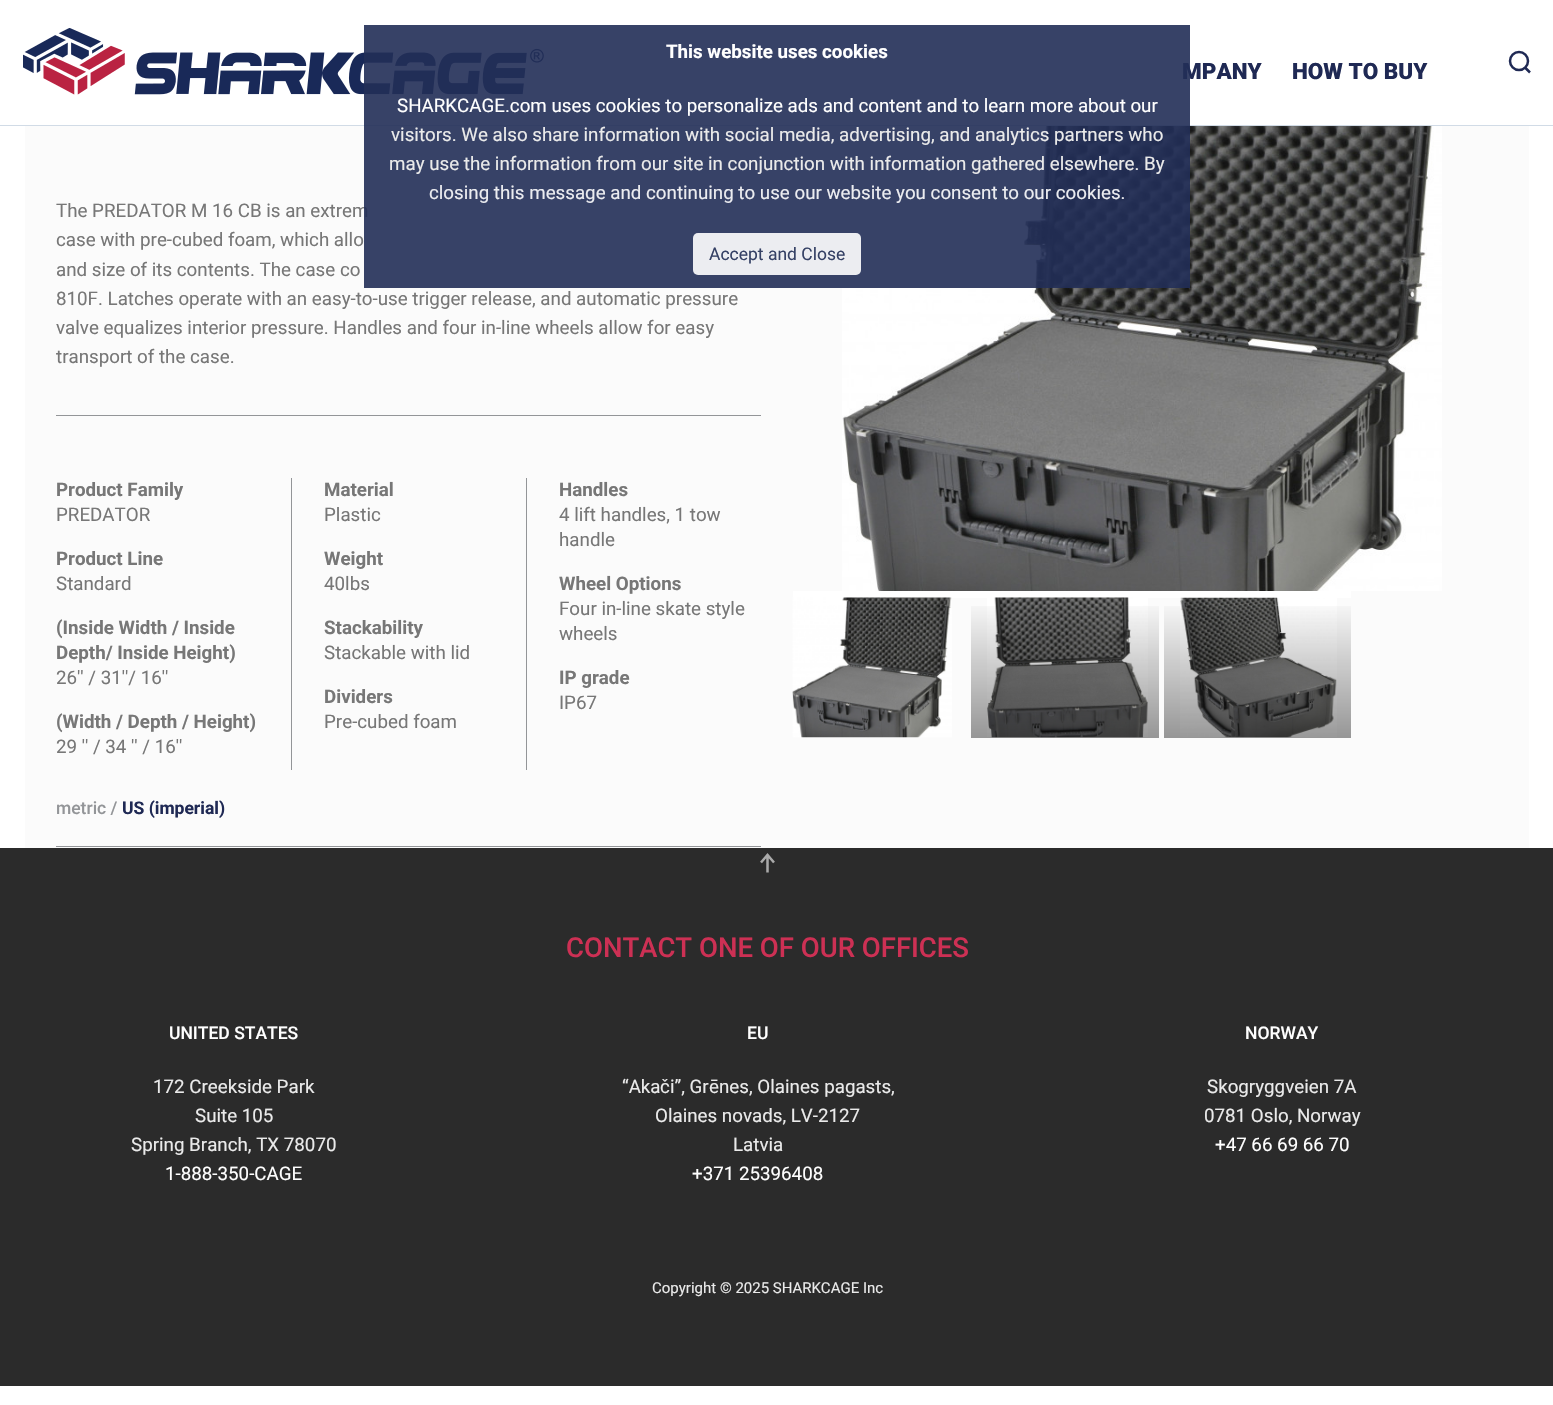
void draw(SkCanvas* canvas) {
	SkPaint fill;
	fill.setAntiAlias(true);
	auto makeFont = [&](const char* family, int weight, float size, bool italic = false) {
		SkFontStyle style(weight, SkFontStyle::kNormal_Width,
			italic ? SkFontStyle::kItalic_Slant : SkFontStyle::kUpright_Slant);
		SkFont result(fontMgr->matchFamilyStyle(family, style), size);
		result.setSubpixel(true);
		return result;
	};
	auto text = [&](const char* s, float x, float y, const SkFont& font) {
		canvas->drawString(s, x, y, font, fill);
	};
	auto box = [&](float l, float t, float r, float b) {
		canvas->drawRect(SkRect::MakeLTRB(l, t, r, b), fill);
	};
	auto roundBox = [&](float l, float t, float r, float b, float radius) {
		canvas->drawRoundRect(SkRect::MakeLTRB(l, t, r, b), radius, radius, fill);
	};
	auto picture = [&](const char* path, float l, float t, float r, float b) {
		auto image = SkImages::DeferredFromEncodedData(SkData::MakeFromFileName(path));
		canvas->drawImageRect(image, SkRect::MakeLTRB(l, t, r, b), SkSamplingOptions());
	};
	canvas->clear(0xFFFFFFFF);
	fill.setColor(0xFFD1DBE6);
	box(0, 125, 1553, 126);
	picture("image0.png", 23, 28, 544, 95);
	fill.setStyle(SkPaint::kStroke_Style);
	fill.setStrokeWidth(2.5f);
	fill.setColor(0xFF1F2954);
	canvas->drawCircle(1519, 61, 9, fill);
	canvas->drawPath(SkPathBuilder().moveTo(1525, 67.5f).lineTo(1530, 72.5f).close().detach(), fill);
	fill.setStyle(SkPaint::kFill_Style);
	fill.setColor(0xFFFBFBFB);
	box(25, 126, 1529, 848);
	fill.setColor(0xFF939598);
	box(56, 846, 761, 847);
	box(56, 415, 761, 416);
	box(291, 478, 292, 770);
	box(526, 478, 527, 770);
	picture("image1.png", 842, 126, 1442, 591);
	fill.setColor(0xFFFFFFFF);
	box(793, 591, 1351, 598);
	picture("image2.png", 792, 597, 952, 738);
	picture("image3.png", 987, 597, 1148, 738);
	{
		const SkColor colors[] = {0x00000000, 0x66000000};
		const float stops[] = {0, 1};
		const SkPoint ends[] = {{1065, 598}, {1065, 738}};
		fill.setShader(SkGradientShader::MakeLinear(ends, colors, stops, 2, SkTileMode::kClamp));
		fill.setAlpha(255);
	}
	box(971, 606, 1159, 738);
	picture("image4.png", 1180, 597, 1337, 738);
	{
		const SkColor colors[] = {0x00000000, 0x66000000};
		const float stops[] = {0, 1};
		const SkPoint ends[] = {{1258, 598}, {1258, 738}};
		fill.setShader(SkGradientShader::MakeLinear(ends, colors, stops, 2, SkTileMode::kClamp));
		fill.setAlpha(255);
	}
	box(1164, 606, 1351, 738);
	fill.setShader(nullptr);
	fill.setColor(0xFF2B2B2B);
	box(0, 848, 1553, 1386);
	fill.setStyle(SkPaint::kStroke_Style);
	fill.setColor(0xFFAAAAAA);
	canvas->drawPath(SkPathBuilder().moveTo(761, 862.5f).lineTo(767.5f, 855).lineTo(774, 862.5f).moveTo(767.5f, 856).lineTo(767.5f, 872.5f).detach(), fill);
	auto font1 = makeFont("Roboto", 900, 22.5f);
	fill.setStyle(SkPaint::kFill_Style);
	fill.setColor(0xFF1F2954);
	text("MPANY", 1182, 79, font1);
	text("HOW TO BUY", 1292, 79, font1);
	auto font2 = makeFont("Roboto", 400, 18.75f);
	fill.setColor(0xFF777777);
	text("The PREDATOR M 16 CB is an extrem", 56, 217, font2);
	fill.setColor(0xE6212E56);
	box(364, 25, 1190, 288);
	fill.setColor(0xE6FFFFFF);
	roundBox(693, 233, 861, 275, 5);
	auto font3 = makeFont("Roboto", 400, 17.5f);
	fill.setColor(0xFF354165);
	text("Accept and Close", 709, 260, font3);
	fill.setColor(0xFFEBECF0);
	text("closing this message and continuing to use our website you consent to our cookies.", 429, 199, font2);
	fill.setColor(0xFFEAEAEA);
	text("may use the information from our site in conjunction with information gathered elsewhere. By", 389, 170, font2);
	text("visitors. We also share information with social media, advertising, and analytics partners who", 391, 141, font2);
	fill.setColor(0xFFFFFFFF);
	text("SHARKCAGE.com uses cookies to personalize ads and content and to learn more about our", 397, 112, font2);
	auto font4 = makeFont("Roboto", 700, 18.75f);
	text("This website uses cookies", 666, 58, font4);
	fill.setColor(0xFF777777);
	text("case with pre-cubed foam, which allo", 56, 246, font2);
	text("and size of its contents. The case co", 56, 276, font2);
	text("810F. Latches operate with an easy-to-use trigger release, and automatic pressure", 56, 305, font2);
	text("valve equalizes interior pressure. Handles and four in-line wheels allow for easy", 56, 334, font2);
	text("transport of the case.", 56, 363, font2);
	text("Product Family", 56, 496, font4);
	text("PREDATOR", 56, 521, font2);
	text("Product Line", 56, 565, font4);
	text("Standard", 56, 590, font2);
	text("(Inside Width / Inside", 56, 634, font4);
	text("Depth/ Inside Height)", 56, 659, font4);
	text("26'' / 31''/ 16''", 56, 684, font2);
	text("(Width / Depth / Height)", 56, 728, font4);
	text("29 '' / 34 '' / 16''", 56, 753, font2);
	text("Material", 324, 496, font4);
	text("Plastic", 324, 521, font2);
	text("Weight", 324, 565, font4);
	text("40lbs", 324, 590, font2);
	text("Stackability", 324, 634, font4);
	text("Stackable with lid", 324, 659, font2);
	text("Dividers", 324, 703, font4);
	text("Pre-cubed foam", 324, 728, font2);
	text("Handles", 559, 496, font4);
	text("4 lift handles, 1 tow", 559, 521, font2);
	text("handle", 559, 546, font2);
	text("Wheel Options", 559, 590, font4);
	text("Four in-line skate style", 559, 615, font2);
	text("wheels", 559, 640, font2);
	text("IP grade", 559, 684, font4);
	text("IP67", 559, 709, font2);
	auto font5 = makeFont("Roboto", 500, 17.5f);
	fill.setColor(0xFF939598);
	text("metric /", 56, 814, font5);
	auto font6 = makeFont("Roboto", 700, 17.5f);
	fill.setColor(0xFF1F2954);
	text("US (imperial)", 122, 814, font6);
	auto font7 = makeFont("Roboto", 500, 27.5f);
	fill.setColor(0xFFCD3054);
	text("CONTACT ONE OF OUR OFFICES", 566, 957, font7);
	fill.setColor(0xFFFFFFFF);
	text("UNITED STATES", 169, 1039, font5);
	fill.setColor(0xFFEAEAEA);
	text("172 Creekside Park", 153, 1093, font2);
	text("Suite 105", 195, 1122, font2);
	text("Spring Branch, TX 78070", 131, 1151, font2);
	fill.setColor(0xFFFFFFFF);
	text("1-888-350-CAGE", 165, 1180, font2);
	text("EU", 747, 1039, font5);
	fill.setColor(0xFFEAEAEA);
	text("“Aka", 622, 1093, font2);
	auto font8 = makeFont("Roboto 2", 400, 18.75f);
	text("č", 660, 1093, font8);
	text("i”, Gr", 670, 1093, font2);
	text("ē", 709, 1093, font8);
	text("nes, Olaines pagasts,", 719, 1093, font2);
	text("Olaines novads, LV-2127", 655, 1122, font2);
	text("Latvia", 733, 1151, font2);
	fill.setColor(0xFFFFFFFF);
	text("+371 25396408", 692, 1180, font2);
	text("NORWAY", 1245, 1039, font5);
	fill.setColor(0xFFEAEAEA);
	text("Skogryggveien 7A", 1207, 1093, font2);
	text("0781 Oslo, Norway", 1204, 1122, font2);
	fill.setColor(0xFFFFFFFF);
	text("+47 66 69 66 70", 1215, 1151, font2);
	auto font9 = makeFont("Roboto", 400, 15);
	fill.setColor(0xFFEAEAEA);
	text("Copyright © 2025 SHARKCAGE Inc", 652, 1293, font9);
}
